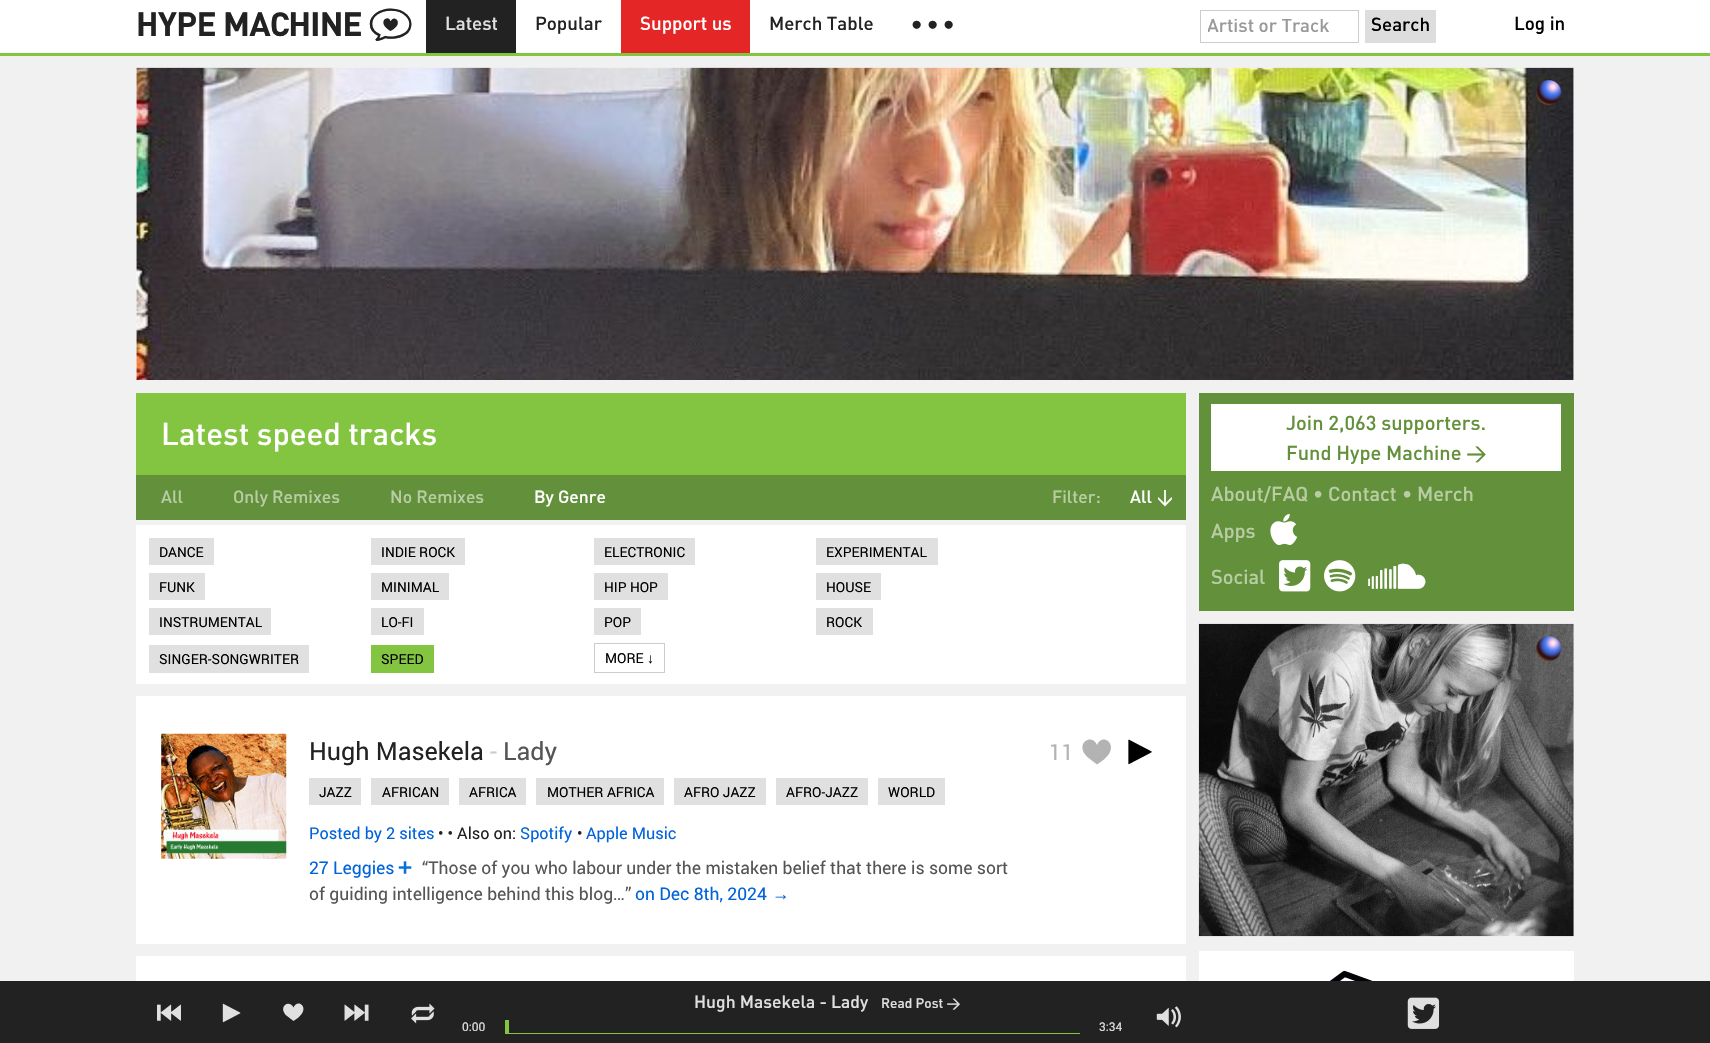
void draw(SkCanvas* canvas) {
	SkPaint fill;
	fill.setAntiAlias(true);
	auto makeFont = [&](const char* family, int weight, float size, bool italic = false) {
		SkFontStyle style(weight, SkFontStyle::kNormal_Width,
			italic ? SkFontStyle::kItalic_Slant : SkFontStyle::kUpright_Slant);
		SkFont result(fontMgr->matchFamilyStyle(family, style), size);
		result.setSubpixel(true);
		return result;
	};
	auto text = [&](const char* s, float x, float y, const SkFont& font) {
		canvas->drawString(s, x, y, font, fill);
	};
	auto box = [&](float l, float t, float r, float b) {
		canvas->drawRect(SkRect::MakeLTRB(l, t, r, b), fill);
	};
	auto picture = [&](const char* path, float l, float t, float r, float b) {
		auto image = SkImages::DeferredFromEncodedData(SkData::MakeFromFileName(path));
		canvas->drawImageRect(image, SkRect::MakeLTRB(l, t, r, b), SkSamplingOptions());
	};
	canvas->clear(0xFFF1F1F1);
	fill.setColor(0xFFFFFFFF);
	box(0, 0, 1710, 53);
	fill.setColor(0xFF83C441);
	box(0, 53, 1710, 56);
	fill.setColor(0xFF222222);
	box(426, 0, 516, 53);
	fill.setColor(0xFFE42626);
	box(621, 0, 750, 53);
	fill.setStyle(SkPaint::kStroke_Style);
	fill.setStrokeWidth(1);
	fill.setColor(0xFFCCCCCC);
	canvas->drawRect(SkRect::MakeLTRB(1200.5f, 10.5f, 1358.5f, 42.5f), fill);
	fill.setStyle(SkPaint::kFill_Style);
	fill.setColor(0xFFDDDDDD);
	box(1365, 10, 1436, 43);
	picture("image0.png", 136, 67, 1574, 380);
	fill.setColor(0xFF83C441);
	box(136, 393, 1186, 475);
	fill.setColor(0xFF63903A);
	box(1199, 393, 1574, 611);
	fill.setColor(0xFFFFFFFF);
	box(1211, 404, 1561, 471);
	picture("image1.png", 1270, 513, 1298, 546);
	picture("image2.png", 1279, 560, 1311, 592);
	picture("image3.png", 1324, 560, 1356, 592);
	picture("image4.png", 1198, 623, 1574, 937);
	box(1199, 951, 1574, 981);
	picture("image5.png", 1330, 970, 1373, 981);
	fill.setColor(0xFF63903A);
	box(136, 475, 1186, 520);
	fill.setColor(0xFFFFFFFF);
	box(136, 525, 1186, 684);
	fill.setColor(0xFFE0E0E0);
	box(149, 538, 214, 565);
	box(371, 538, 465, 565);
	box(594, 538, 695, 565);
	box(816, 538, 938, 565);
	box(149, 573, 205, 600);
	box(371, 573, 449, 600);
	box(594, 573, 668, 600);
	box(816, 573, 881, 600);
	box(149, 608, 271, 635);
	box(371, 608, 424, 635);
	box(594, 608, 641, 635);
	box(816, 608, 873, 635);
	box(149, 645, 309, 673);
	fill.setColor(0xFF83C441);
	box(371, 645, 434, 673);
	fill.setStyle(SkPaint::kStroke_Style);
	fill.setColor(0xFFCCCCCC);
	canvas->drawRect(SkRect::MakeLTRB(594.5f, 643.5f, 664.5f, 672.5f), fill);
	fill.setStyle(SkPaint::kFill_Style);
	fill.setColor(0xFFFFFFFF);
	box(136, 696, 1186, 944);
	picture("image6.png", 161, 733, 287, 859);
	fill.setColor(0xFFB3B3B3);
	canvas->drawPath(SkPathBuilder().moveTo(1097, 745).cubicTo(1102.5f, 731.5f, 1121, 745.5f, 1104, 759.5f).lineTo(1097, 764.5f).lineTo(1088, 757.5f).cubicTo(1073.5f, 744.5f, 1091.5f, 732, 1097, 745).close().detach(), fill);
	picture("image7.png", 1128, 739, 1152, 765);
	fill.setColor(0xFFE0E0E0);
	box(309, 778, 361, 805);
	box(371, 778, 449, 805);
	box(459, 778, 526, 805);
	box(536, 778, 664, 805);
	box(674, 778, 766, 805);
	box(776, 778, 868, 805);
	box(878, 778, 945, 805);
	picture("image8.png", 398, 861, 412, 874);
	fill.setColor(0xFFFFFFFF);
	box(136, 956, 1186, 981);
	fill.setColor(0xFF222222);
	box(0, 981, 1710, 1043);
	picture("image9.png", 157, 1004, 181, 1021);
	picture("image10.png", 222, 1003, 241, 1023);
	fill.setColor(0xFFE0E0E0);
	canvas->drawPath(SkPathBuilder().moveTo(293.5f, 1007.5f).cubicTo(297.5f, 998, 310.5f, 1007.5f, 298.5f, 1017.5f).lineTo(293.5f, 1021).lineTo(287, 1016).cubicTo(277, 1007, 289.5f, 998.5f, 293.5f, 1007.5f).close().detach(), fill);
	picture("image11.png", 344, 1004, 369, 1021);
	picture("image12.png", 411, 1003, 435, 1024);
	picture("image13.png", 1407, 997, 1440, 1029);
	fill.setColor(0xFF83C441);
	box(505, 1033, 1080, 1034);
	box(505, 1020, 509, 1033);
	picture("image14.png", 1156, 1006, 1181, 1028);
	auto font1 = makeFont("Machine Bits", 400, 47.5f);
	fill.setColor(0xFF222222);
	text("1", 136, 35, font1);
	auto font2 = makeFont("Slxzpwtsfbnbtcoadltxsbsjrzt", 500, 18.75f);
	fill.setColor(0xFFE0E0E0);
	text("Latest", 445, 30, font2);
	fill.setColor(0xFF222222);
	text("Popular", 535, 30, font2);
	fill.setColor(0xFFFFFFFF);
	text("Support us", 640, 30, font2);
	fill.setColor(0xFF222222);
	text("Merch Table", 769, 30, font2);
	auto font3 = makeFont("Liberation Serif", 700, 18.75f);
	text("● ● ●", 911, 30, font3);
	canvas->save();
	canvas->clipRect(SkRect::MakeLTRB(1208, 19, 1358, 38));
	fill.setColor(0xFF999999);
	text("Artist or Track", 1207, 32, font2);
	canvas->restore();
	fill.setColor(0xFF000000);
	text("Search", 1371, 31, font2);
	text("Log in", 1514, 30, font2);
	auto font4 = makeFont("Slxzpwtsfbnbtcoadltxsbsjrzt", 500, 31.25f);
	fill.setColor(0xFFFFFFFF);
	text("Latest speed tracks", 161, 445, font4);
	auto font5 = makeFont("Slxzpwtsfbnbtcoadltxsbsjrzt", 500, 20);
	fill.setColor(0xFF63903A);
	text("Join 2,063 supporters.", 1286, 430, font5);
	text("Fund Hype Machine →", 1286, 460, font5);
	canvas->save();
	canvas->clipRect(SkRect::MakeLTRB(1211, 486, 1561, 506));
	fill.setColor(0xFFB9CDA5);
	text("About/FAQ", 1211, 501, font5);
	canvas->restore();
	text("•", 1313, 501, font5);
	text("Contact", 1328, 501, font5);
	text("•", 1402, 501, font5);
	text("Merch", 1417, 501, font5);
	text("Apps", 1211, 538, font5);
	text("Social", 1211, 584, font5);
	auto font6 = makeFont("Machine Bits", 400, 25);
	fill.setColor(0xFFFFFFFF);
	text("9", 1367, 586, font6);
	auto font7 = makeFont("Slxzpwtsfbnbtcoadltxsbsjrzt", 500, 17.5f);
	fill.setColor(0xFFB9CDA5);
	text("All", 161, 503, font7);
	text("Only Remixes", 233, 503, font7);
	text("No Remixes", 390, 503, font7);
	fill.setColor(0xFFFFFFFF);
	text("By Genre", 534, 503, font7);
	fill.setColor(0xFFB9CDA5);
	text("Filter:", 1052, 503, font7);
	fill.setColor(0xFFFFFFFF);
	text("All ↓", 1130, 503, font7);
	auto font8 = makeFont("Roboto", 400, 13.75f);
	fill.setColor(0xFF000000);
	text("DANCE", 159, 557, font8);
	text("INDIE ROCK", 381, 557, font8);
	text("ELECTRONIC", 604, 557, font8);
	text("EXPERIMENTAL", 826, 557, font8);
	text("FUNK", 159, 592, font8);
	text("MINIMAL", 381, 592, font8);
	text("HIP HOP", 604, 592, font8);
	text("HOUSE", 826, 592, font8);
	text("INSTRUMENTAL", 159, 627, font8);
	text("LO-FI", 381, 627, font8);
	text("POP", 604, 627, font8);
	text("ROCK", 826, 627, font8);
	text("SINGER-SONGWRITER", 159, 664, font8);
	text("SPEED", 381, 664, font8);
	text("MORE", 605, 663, font8);
	auto font9 = makeFont("Liberation Sans", 400, 13.75f);
	text("↓", 647, 663, font9);
	auto font10 = makeFont("Roboto", 400, 25);
	fill.setColor(0xFF222222);
	text("Hugh Masekela", 309, 760, font10);
	fill.setColor(0xFFCCCCCC);
	text("-", 490, 760, font10);
	fill.setColor(0xFF555555);
	text("Lady", 503, 760, font10);
	auto font11 = makeFont("Roboto", 400, 22);
	fill.setColor(0xFFB3B3B3);
	text("11", 1049, 760, font11);
	fill.setColor(0xFF000000);
	text("JAZZ", 319, 797, font8);
	text("AFRICAN", 382, 797, font8);
	text("AFRICA", 469, 797, font8);
	text("MOTHER AFRICA", 547, 797, font8);
	text("AFRO JAZZ", 684, 797, font8);
	text("AFRO-JAZZ", 786, 797, font8);
	text("WORLD", 888, 797, font8);
	auto font12 = makeFont("Roboto", 400, 16.25f);
	fill.setColor(0xFF0063DC);
	text("Posted by 2 sites", 309, 839, font12);
	fill.setColor(0xFF222222);
	text("• • Also on:", 438, 839, font12);
	fill.setColor(0xFF0063DC);
	text("Spotify", 520, 839, font12);
	fill.setColor(0xFF222222);
	text("•", 577, 839, font12);
	fill.setColor(0xFF0063DC);
	text("Apple Music", 586, 839, font12);
	auto font13 = makeFont("Roboto", 400, 17.5f);
	text("27 Leggies", 309, 874, font13);
	fill.setColor(0xFF555555);
	text("“Those of you who labour under the mistaken belief that there is some sort", 422, 874, font13);
	text("of guiding intelligence behind this blog…”", 309, 900, font13);
	fill.setColor(0xFF0063DC);
	text("on Dec 8th, 2024", 635, 900, font13);
	auto font14 = makeFont("Liberation Sans", 400, 17.5f);
	text("→", 772, 900, font14);
	fill.setColor(0xFFE0E0E0);
	text("Hugh Masekela - Lady", 694, 1008, font7);
	auto font15 = makeFont("Slxzpwtsfbnbtcoadltxsbsjrzt", 500, 13.75f);
	text("Read Post →", 881, 1008, font15);
	auto font16 = makeFont("Roboto", 400, 12);
	text("0:00", 462, 1031, font16);
	text("3:34", 1099, 1031, font16);
}
